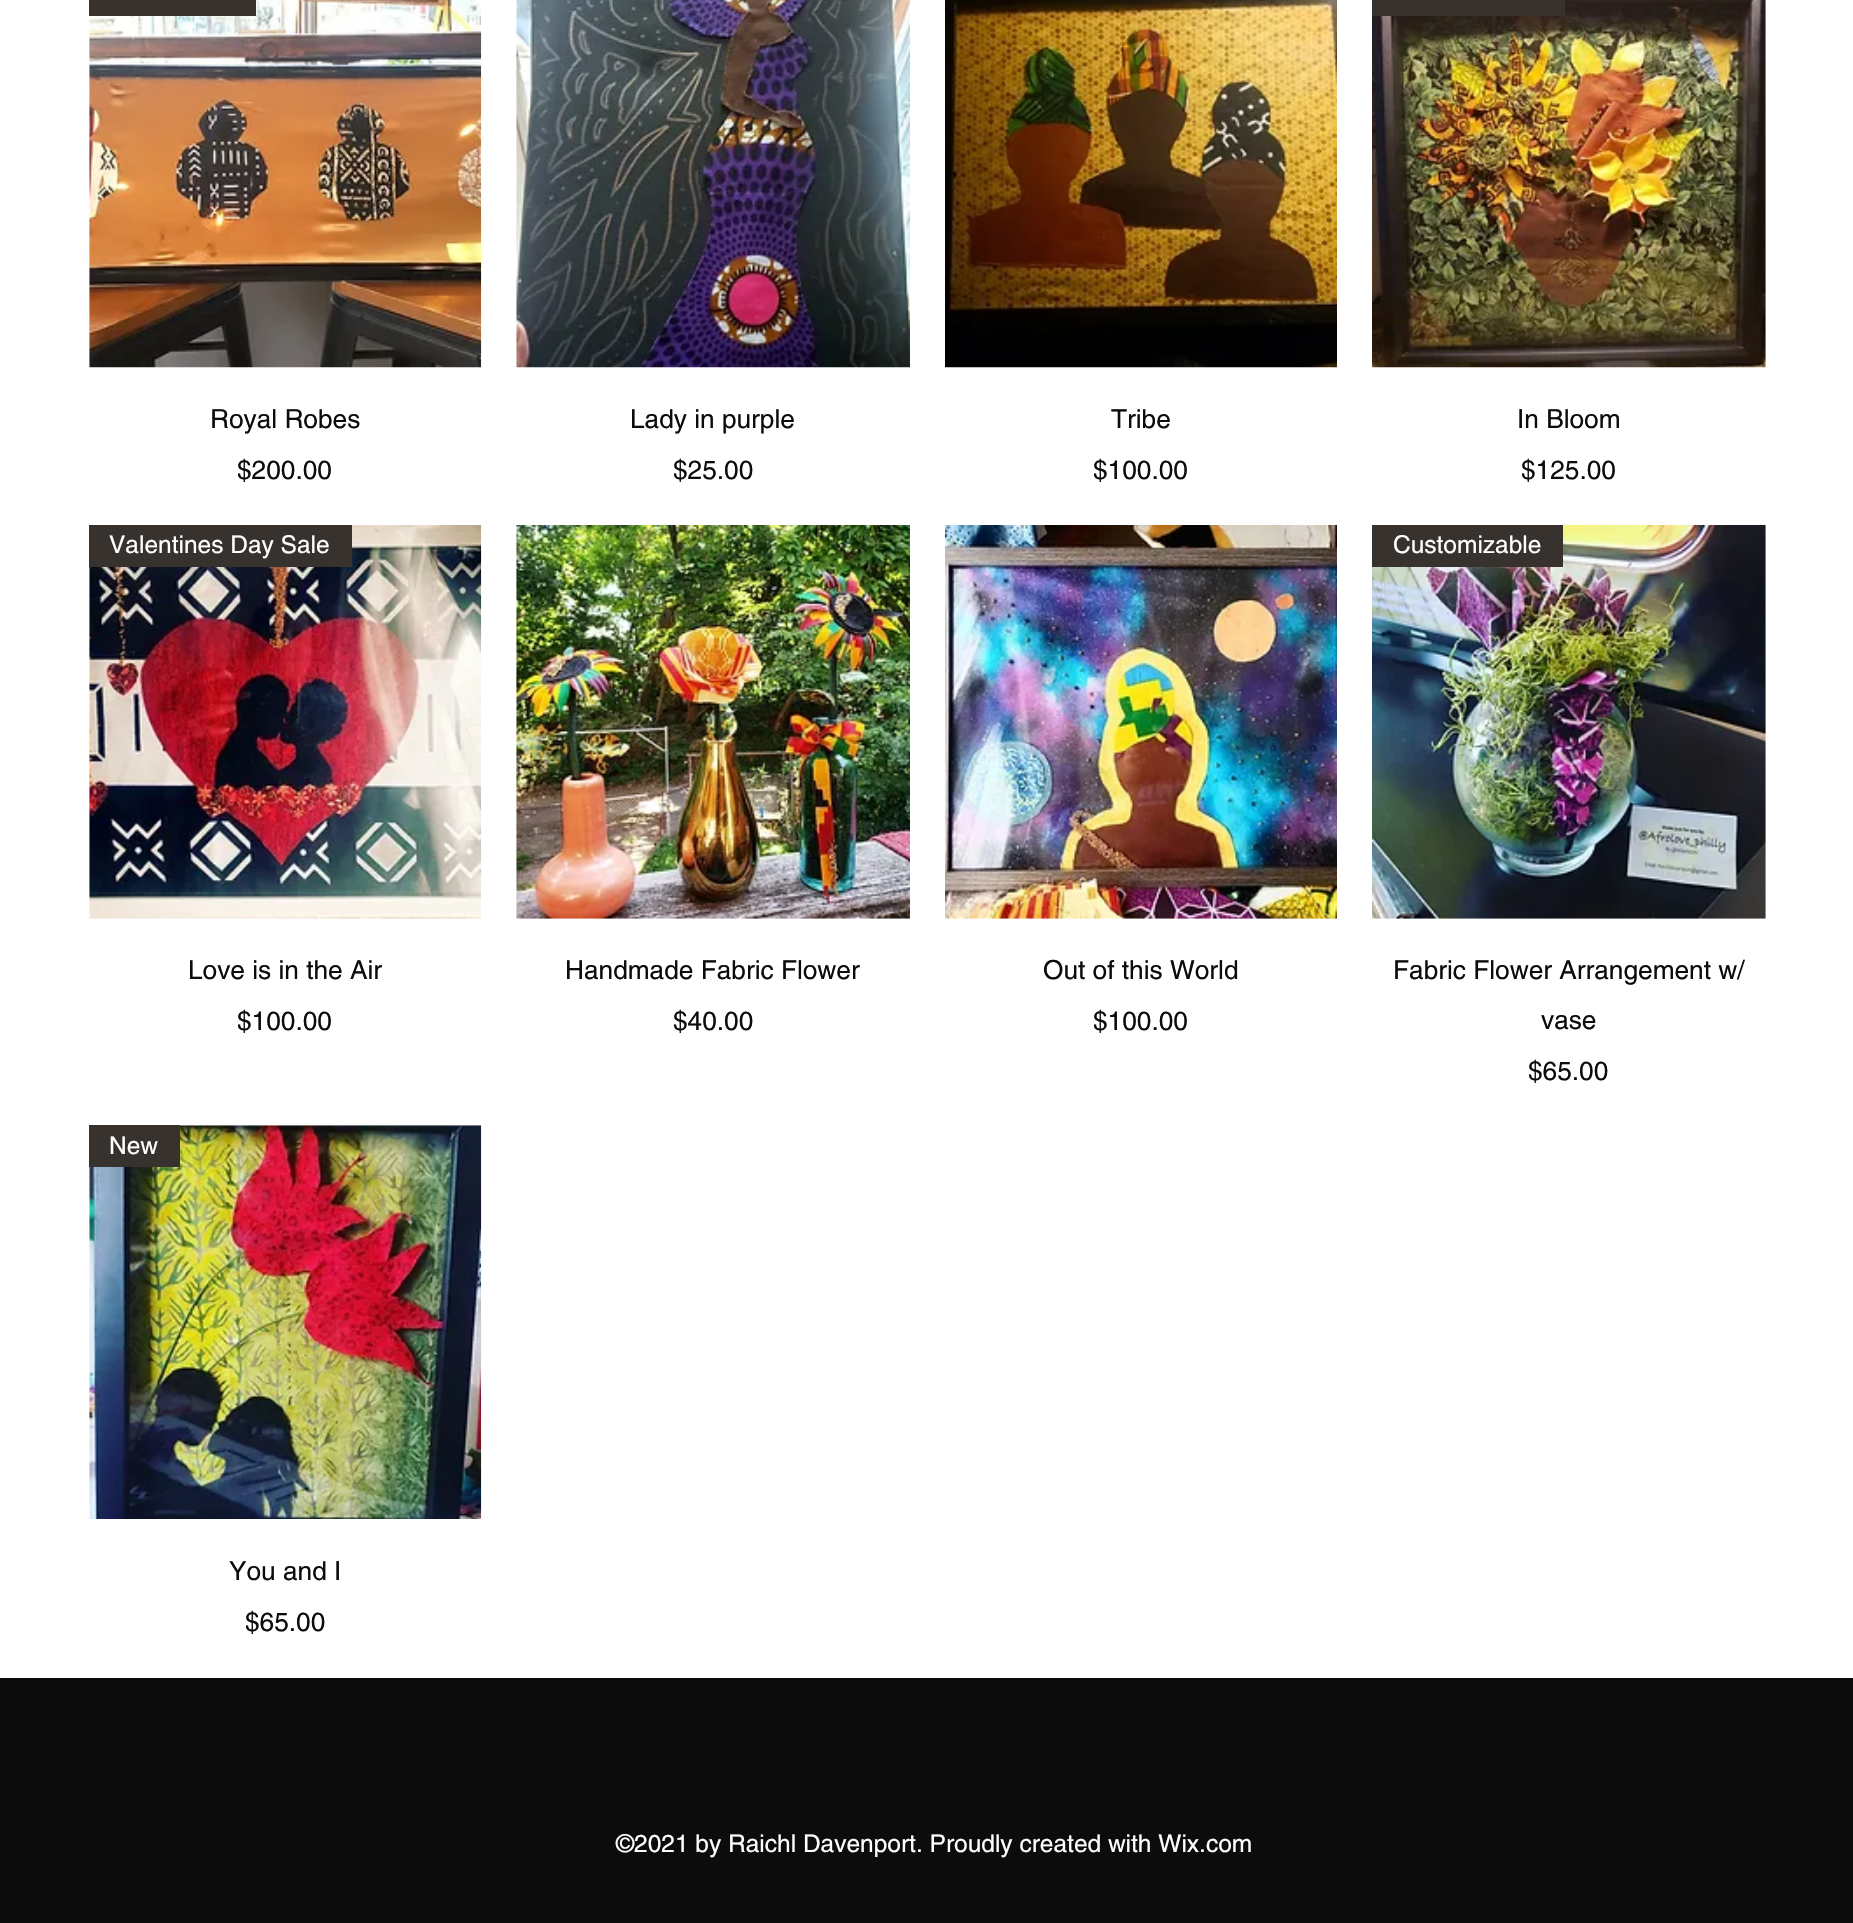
void draw(SkCanvas* canvas) {
	SkPaint fill;
	fill.setAntiAlias(true);
	auto makeFont = [&](const char* family, int weight, float size, bool italic = false) {
		SkFontStyle style(weight, SkFontStyle::kNormal_Width,
			italic ? SkFontStyle::kItalic_Slant : SkFontStyle::kUpright_Slant);
		SkFont result(fontMgr->matchFamilyStyle(family, style), size);
		result.setSubpixel(true);
		return result;
	};
	auto text = [&](const char* s, float x, float y, const SkFont& font) {
		canvas->drawString(s, x, y, font, fill);
	};
	auto box = [&](float l, float t, float r, float b) {
		canvas->drawRect(SkRect::MakeLTRB(l, t, r, b), fill);
	};
	auto picture = [&](const char* path, float l, float t, float r, float b) {
		auto image = SkImages::DeferredFromEncodedData(SkData::MakeFromFileName(path));
		canvas->drawImageRect(image, SkRect::MakeLTRB(l, t, r, b), SkSamplingOptions());
	};
	canvas->clear(0xFFFFFFFF);
	picture("image0.png", 89, 0, 482, 368);
	fill.setColor(0xFF37322E);
	box(89, 0, 256, 16);
	picture("image1.png", 516, 0, 910, 368);
	picture("image2.png", 945, 0, 1337, 368);
	picture("image3.png", 1372, 0, 1766, 368);
	box(1372, 0, 1565, 16);
	picture("image4.png", 89, 525, 482, 919);
	box(89, 525, 352, 567);
	picture("image5.png", 516, 525, 910, 919);
	picture("image6.png", 945, 525, 1337, 919);
	picture("image7.png", 1372, 525, 1766, 919);
	box(1372, 525, 1563, 567);
	picture("image8.png", 89, 1125, 482, 1519);
	box(89, 1125, 180, 1167);
	fill.setColor(0xFF0C0C0D);
	box(0, 1678, 1853, 1923);
	auto font1 = makeFont("helvetica", 400, 26.25f);
	text("Royal Robes", 210, 428, font1);
	text("$200.00", 237, 479, font1);
	text("Lady in purple", 630, 428, font1);
	text("$25.00", 673, 479, font1);
	text("Tribe", 1111, 428, font1);
	text("$100.00", 1093, 479, font1);
	text("In Bloom", 1517, 428, font1);
	text("$125.00", 1521, 479, font1);
	auto font2 = makeFont("helvetica", 400, 24.5f);
	fill.setColor(0xFFFFFFFF);
	text("Valentines Day Sale", 109, 553, font2);
	fill.setColor(0xFF0C0C0D);
	text("Love is in the Air", 188, 979, font1);
	text("$100.00", 237, 1030, font1);
	text("Handmade Fabric Flower", 565, 979, font1);
	text("$40.00", 673, 1030, font1);
	text("Out of this World", 1043, 979, font1);
	text("$100.00", 1093, 1030, font1);
	fill.setColor(0xFFFFFFFF);
	text("Customizable", 1393, 553, font2);
	fill.setColor(0xFF0C0C0D);
	text("Fabric Flower Arrangement w/", 1393, 979, font1);
	text("vase", 1541, 1029, font1);
	text("$65.00", 1528, 1080, font1);
	fill.setColor(0xFFFFFFFF);
	text("New", 109, 1154, font2);
	fill.setColor(0xFF0C0C0D);
	text("You and I", 229, 1580, font1);
	text("$65.00", 245, 1631, font1);
	fill.setColor(0xFFFFFFFF);
	text("©2021 by Raichl Davenport. Proudly created with Wix.com", 616, 1852, font2);
}
